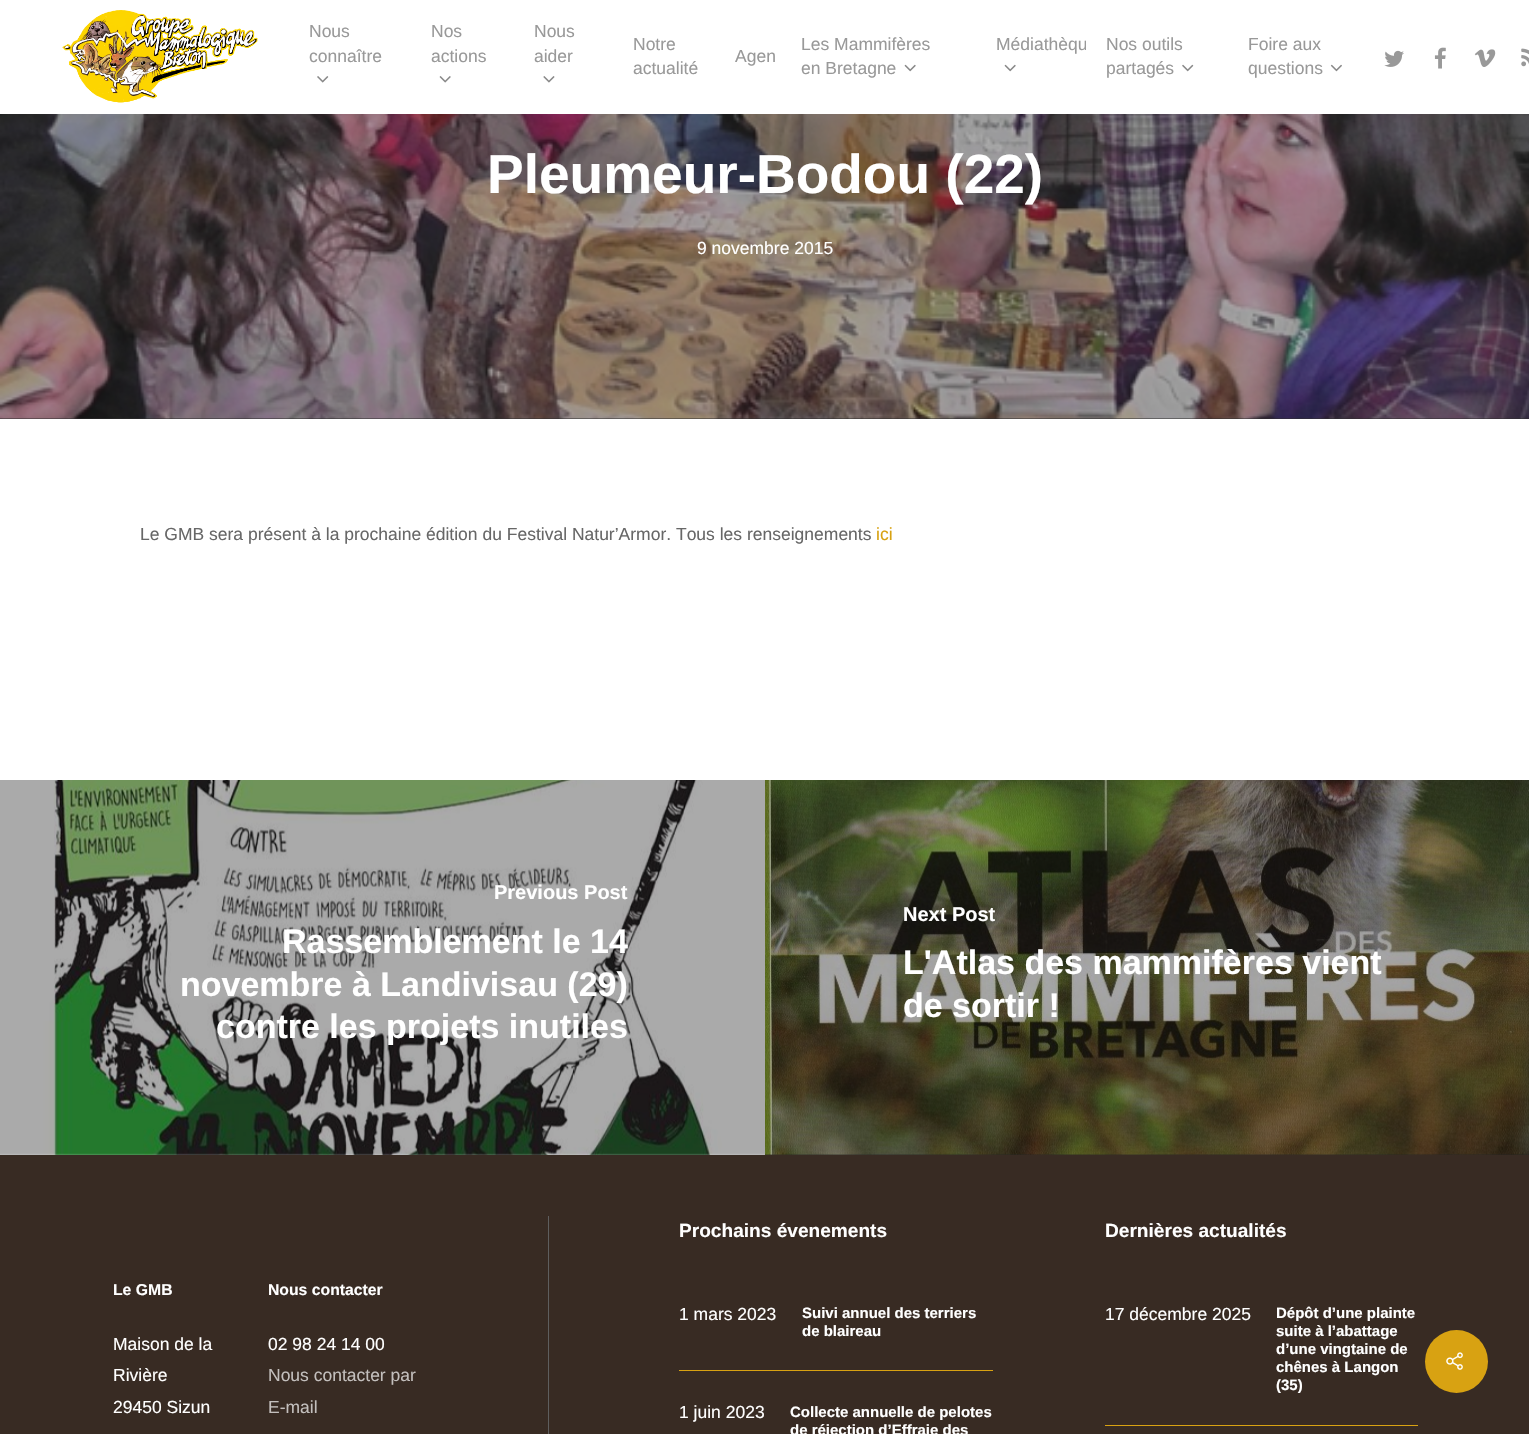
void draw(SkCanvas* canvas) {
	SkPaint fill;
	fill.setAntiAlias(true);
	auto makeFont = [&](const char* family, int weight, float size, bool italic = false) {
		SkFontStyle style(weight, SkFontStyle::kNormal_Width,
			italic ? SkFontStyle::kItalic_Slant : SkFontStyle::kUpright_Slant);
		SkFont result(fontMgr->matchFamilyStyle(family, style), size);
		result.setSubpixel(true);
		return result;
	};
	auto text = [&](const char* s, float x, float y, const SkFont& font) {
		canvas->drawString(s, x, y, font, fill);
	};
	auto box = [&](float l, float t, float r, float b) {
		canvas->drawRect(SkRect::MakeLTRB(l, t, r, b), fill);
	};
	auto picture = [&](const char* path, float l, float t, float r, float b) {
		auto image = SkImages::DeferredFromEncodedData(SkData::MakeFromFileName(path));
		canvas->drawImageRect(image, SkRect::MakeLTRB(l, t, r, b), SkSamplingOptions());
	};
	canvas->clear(0xFFFFFFFF);
	picture("image0.png", 62, 10, 258, 103);
	picture("image1.png", 317, 76, 329, 83);
	fill.setColor(0xFFFFFFFF);
	canvas->drawPath(SkPathBuilder().moveTo(295, 109).lineTo(411, 109).lineTo(411, 114).lineTo(289, 114).lineTo(289, 115).cubicTo(289, 111.5f, 291.5f, 109, 295, 109).close().detach(), fill);
	picture("image2.png", 439, 76, 451, 83);
	canvas->drawPath(SkPathBuilder().moveTo(417, 109).lineTo(515, 109).lineTo(515, 114).lineTo(411, 114).lineTo(411, 115).cubicTo(411, 111.5f, 413.5f, 109, 417, 109).close().detach(), fill);
	picture("image3.png", 543, 76, 555, 83);
	canvas->drawPath(SkPathBuilder().moveTo(521, 109).lineTo(614, 109).lineTo(614, 114).lineTo(515, 114).lineTo(515, 115).cubicTo(515, 111.5f, 517.5f, 109, 521, 109).close().detach(), fill);
	picture("image4.png", 904, 64, 916, 72);
	canvas->drawPath(SkPathBuilder().moveTo(787, 109).lineTo(976, 109).lineTo(976, 114).lineTo(781, 114).lineTo(781, 115).cubicTo(781, 111.5f, 783.5f, 109, 787, 109).close().detach(), fill);
	picture("image4.png", 1004, 64, 1016, 72);
	canvas->drawPath(SkPathBuilder().moveTo(982, 109).lineTo(1086, 109).lineTo(1086, 114).lineTo(976, 114).lineTo(976, 115).cubicTo(976, 111.5f, 978.5f, 109, 982, 109).close().detach(), fill);
	picture("image5.png", 1182, 64, 1194, 72);
	picture("image6.png", 1330, 64, 1342, 72);
	canvas->drawPath(SkPathBuilder().moveTo(1234, 109).lineTo(1373, 109).lineTo(1373, 114).lineTo(1228, 114).lineTo(1228, 115).cubicTo(1228, 111.5f, 1230.5f, 109, 1234, 109).close().detach(), fill);
	picture("image7.png", 1384, 50, 1404, 67);
	picture("image8.png", 1434, 47, 1446, 69);
	picture("image9.png", 1474, 49, 1496, 67);
	picture("image10.png", 1521, 48, 1529, 67);
	fill.setColor(0xFF2D2D2D);
	box(0, 418, 1529, 419);
	picture("image11.png", 0, 114, 1529, 419);
	fill.setColor(0xFF262626);
	box(765, 1154, 1529, 1155);
	picture("image12.png", 0, 780, 765, 1155);
	picture("image13.png", 765, 780, 1529, 1155);
	fill.setColor(0xFF382B23);
	box(0, 1155, 1529, 1434);
	fill.setColor(0xFF5E5E5E);
	box(548, 1216, 549, 1434);
	fill.setColor(0xFFD8A212);
	box(679, 1370, 993, 1371);
	box(1105, 1425, 1418, 1426);
	canvas->drawCircle(1456.5f, 1361.5f, 31.5f, fill);
	picture("image14.png", 1446, 1352, 1463, 1370);
	auto font1 = makeFont("Liberation Sans", 400, 17.5f);
	fill.setColor(0xFF999999);
	text("Nous", 309, 37, font1);
	text("connaître", 309, 62, font1);
	text("Nos", 431, 37, font1);
	text("actions", 431, 62, font1);
	text("Nous", 534, 37, font1);
	text("aider", 534, 62, font1);
	text("Notre", 633, 50, font1);
	text("actualité", 633, 74, font1);
	text("Agen", 735, 62, font1);
	text("Les Mammifères", 801, 50, font1);
	text("en Bretagne", 801, 74, font1);
	canvas->save();
	canvas->clipRect(SkRect::MakeLTRB(976, 0, 1086, 114));
	text("Médiathèqu", 996, 50, font1);
	canvas->restore();
	text("Nos outils", 1106, 50, font1);
	text("partagés", 1106, 74, font1);
	text("Foire aux", 1248, 50, font1);
	text("questions", 1248, 74, font1);
	auto font2 = makeFont("Liberation Sans", 700, 55);
	fill.setColor(0xFFFFFFFF);
	text("Pleumeur-Bodou (22)", 487, 193, font2);
	text("9 novembre 2015", 697, 254, font1);
	fill.setColor(0xFF676767);
	text("Le GMB sera présent à la prochaine édition du Festival Natur’Armor. Tous les renseignements", 140, 540, font1);
	fill.setColor(0xFFD8A212);
	text("ici", 876, 540, font1);
	auto font3 = makeFont("Liberation Sans", 700, 20);
	fill.setColor(0xFFFFFFFF);
	text("Previous Post", 494, 899, font3);
	auto font4 = makeFont("Liberation Sans", 700, 34);
	text("Rassemblement le 14", 282, 953, font4);
	text("novembre à Landivisau (29)", 180, 996, font4);
	text("contre les projets inutiles", 216, 1038, font4);
	text("Next Post", 903, 921, font3);
	text("L'Atlas des mammifères vient", 903, 974, font4);
	text("de sortir !", 903, 1017, font4);
	auto font5 = makeFont("Liberation Sans", 700, 15.75f);
	text("Le GMB", 113, 1295, font5);
	text("Maison de la", 113, 1350, font1);
	text("Rivière", 113, 1381, font1);
	text("29450 Sizun", 113, 1413, font1);
	text("Nous contacter", 268, 1295, font5);
	text("02 98 24 14 00", 268, 1350, font1);
	fill.setColor(0xFFC3BFBD);
	text("Nous contacter par", 268, 1381, font1);
	text("E-mail", 268, 1413, font1);
	auto font6 = makeFont("Liberation Sans", 700, 19.1f);
	fill.setColor(0xFFFFFFFF);
	text("Prochains évenements", 679, 1237, font6);
	text("1 mars 2023", 679, 1320, font1);
	auto font7 = makeFont("Liberation Sans", 700, 15);
	text("Suivi annuel des terriers", 802, 1318, font7);
	text("de blaireau", 802, 1336, font7);
	text("1 juin 2023", 679, 1418, font1);
	text("Collecte annuelle de pelotes", 790, 1417, font7);
	text("de réjection d’Effraie des", 790, 1435, font7);
	text("Dernières actualités", 1105, 1237, font6);
	text("17 décembre 2025", 1105, 1320, font1);
	text("Dépôt d’une plainte", 1276, 1318, font7);
	text("suite à l’abattage", 1276, 1336, font7);
	text("d’une vingtaine de", 1276, 1354, font7);
	text("chênes à Langon", 1276, 1372, font7);
	text("(35)", 1276, 1390, font7);
}
